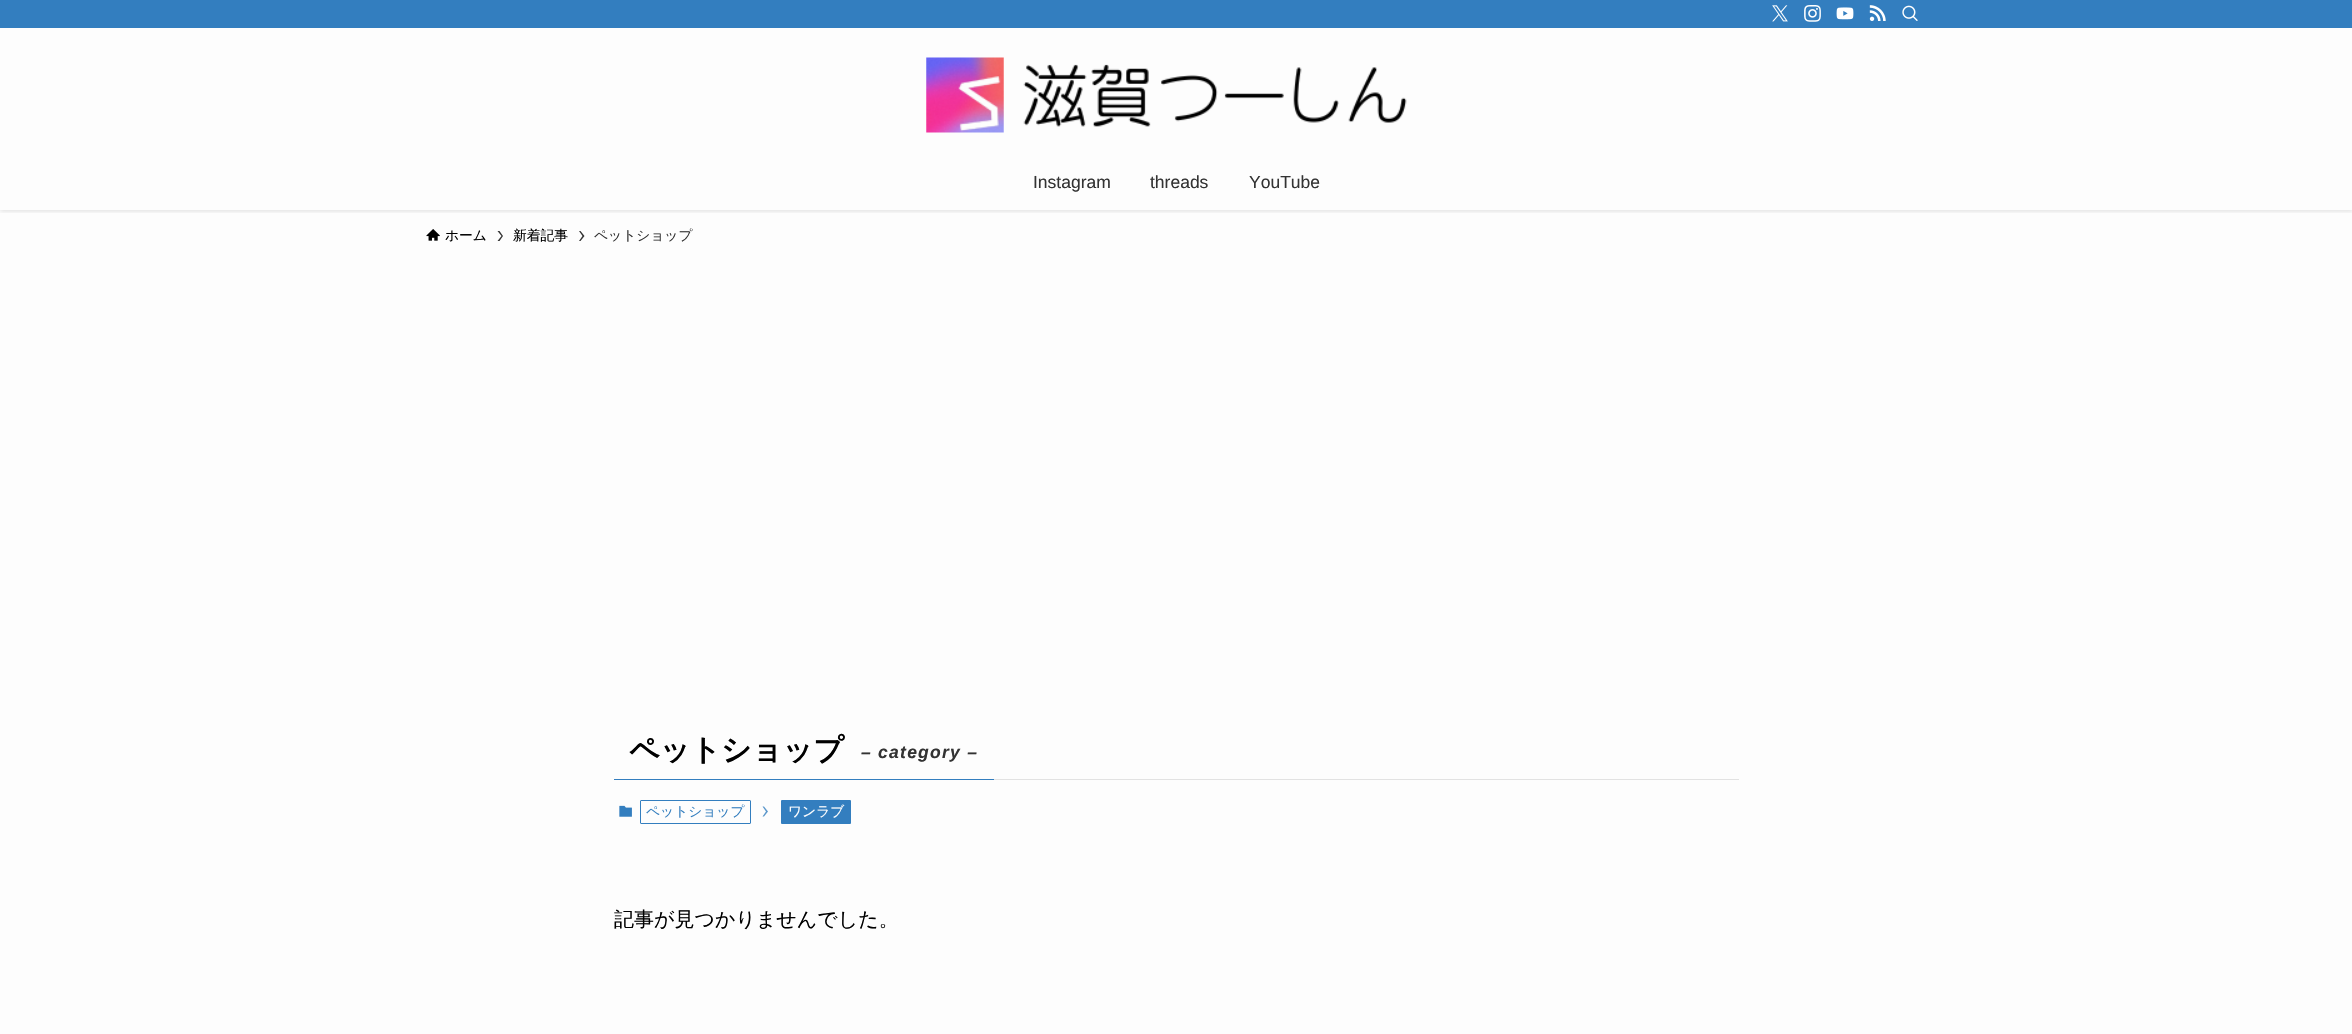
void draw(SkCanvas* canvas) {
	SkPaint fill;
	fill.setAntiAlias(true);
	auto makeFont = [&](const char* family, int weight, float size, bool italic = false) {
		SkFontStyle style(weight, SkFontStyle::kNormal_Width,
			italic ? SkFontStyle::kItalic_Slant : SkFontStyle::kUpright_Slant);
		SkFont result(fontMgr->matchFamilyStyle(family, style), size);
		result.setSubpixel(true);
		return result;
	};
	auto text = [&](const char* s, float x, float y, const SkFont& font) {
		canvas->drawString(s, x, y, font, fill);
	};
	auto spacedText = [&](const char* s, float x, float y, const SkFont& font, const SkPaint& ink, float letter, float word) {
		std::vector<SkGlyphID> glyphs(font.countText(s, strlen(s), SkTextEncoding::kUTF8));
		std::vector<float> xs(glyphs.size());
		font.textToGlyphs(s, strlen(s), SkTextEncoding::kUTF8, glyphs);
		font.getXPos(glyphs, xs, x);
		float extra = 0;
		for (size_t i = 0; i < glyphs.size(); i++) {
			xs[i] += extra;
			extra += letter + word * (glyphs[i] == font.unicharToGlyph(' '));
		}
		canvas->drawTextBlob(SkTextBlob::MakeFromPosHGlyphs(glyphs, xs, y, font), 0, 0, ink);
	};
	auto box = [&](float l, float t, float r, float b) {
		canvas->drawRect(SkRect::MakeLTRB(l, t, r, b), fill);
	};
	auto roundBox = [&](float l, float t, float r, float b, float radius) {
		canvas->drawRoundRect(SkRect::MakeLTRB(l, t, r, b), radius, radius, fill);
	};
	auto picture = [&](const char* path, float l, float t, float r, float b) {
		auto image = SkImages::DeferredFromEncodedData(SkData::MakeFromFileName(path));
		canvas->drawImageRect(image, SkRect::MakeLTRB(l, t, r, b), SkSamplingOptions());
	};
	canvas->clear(0xFFFDFDFD);
	canvas->save();
	canvas->clipRect(SkRect::MakeLTRB(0, 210, 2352, 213));
	fill.setColor(0x1F000000);
	fill.setMaskFilter(SkMaskFilter::MakeBlur(kNormal_SkBlurStyle, 2.5f));
	canvas->drawRect(SkRect::MakeLTRB(0, 1, 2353, 211), fill);
	fill.setMaskFilter(nullptr);
	canvas->restore();
	fill.setColor(0xFF337EBF);
	box(0, 0, 2352, 28);
	picture("image0.png", 1772, 5, 1788, 22);
	picture("image1.png", 1804, 5, 1821, 22);
	picture("image2.png", 1836, 7, 1854, 20);
	picture("image3.png", 1869, 5, 1886, 21);
	picture("image4.png", 1902, 5, 1918, 21);
	picture("image5.png", 926, 57, 1407, 133);
	picture("image6.png", 426, 229, 440, 241);
	fill.setColor(0xFF333333);
	canvas->drawPath(SkPathBuilder().moveTo(499.5f, 231).lineTo(497.5f, 231).lineTo(501.5f, 236).lineTo(497.5f, 241).lineTo(499.5f, 241).lineTo(503, 236).close().detach(), fill);
	canvas->drawPath(SkPathBuilder().moveTo(580.5f, 231).lineTo(579, 231).lineTo(582.5f, 236).lineTo(579, 241).lineTo(580.5f, 241).lineTo(584.5f, 236).close().detach(), fill);
	fill.setColor(0xFFE2E2E2);
	box(994, 779, 1739, 780);
	fill.setColor(0xFF337EBF);
	box(614, 779, 994, 780);
	picture("image7.png", 619, 805, 632, 817);
	fill.setStyle(SkPaint::kStroke_Style);
	fill.setStrokeWidth(1);
	canvas->drawRoundRect(SkRect::MakeLTRB(640.5f, 800.5f, 750.5f, 823.5f), 0.5f, 0.5f, fill);
	fill.setStyle(SkPaint::kFill_Style);
	fill.setColor(0xFF5B97CB);
	canvas->drawPath(SkPathBuilder().moveTo(764, 806.5f).lineTo(762.5f, 806.5f).lineTo(766, 811.5f).lineTo(762.5f, 816.5f).lineTo(764, 816.5f).lineTo(768, 811.5f).close().detach(), fill);
	fill.setColor(0xFF337EBF);
	roundBox(781, 800, 851, 824, 1);
	auto font1 = makeFont("Liberation Sans", 400, 17.5f);
	fill.setColor(0xFF333333);
	text("Instagram", 1033, 188, font1);
	text("threads", 1150, 188, font1);
	text("YouTube", 1249, 188, font1);
	auto font2 = makeFont("WenQuanYi Zen Hei", 500, 13.75f);
	fill.setColor(0xFF000000);
	text("ホーム", 445, 240, font2);
	text("新着記事", 513, 240, font2);
	fill.setColor(0xFF333333);
	text("ペットショップ", 594, 240, font2);
	auto font3 = makeFont("WenQuanYi Zen Hei", 700, 30);
	fill.setColor(0xFF000000);
	text("ペットショップ", 629, 760, font3);
	auto font4 = makeFont("Liberation Sans", 700, 17.5f, true);
	fill.setColor(0xFF333333);
	spacedText("– category –", 861, 758, font4, fill, 1.25f, 0);
	fill.setColor(0xFF337EBF);
	text("ペットショップ", 646, 816, font2);
	fill.setColor(0xFFFFFFFF);
	text("ワンラブ", 788, 816, font2);
	auto font5 = makeFont("WenQuanYi Zen Hei", 500, 20);
	fill.setColor(0xFF000000);
	text("記事が見つかりませんでした。", 614, 926, font5);
}
